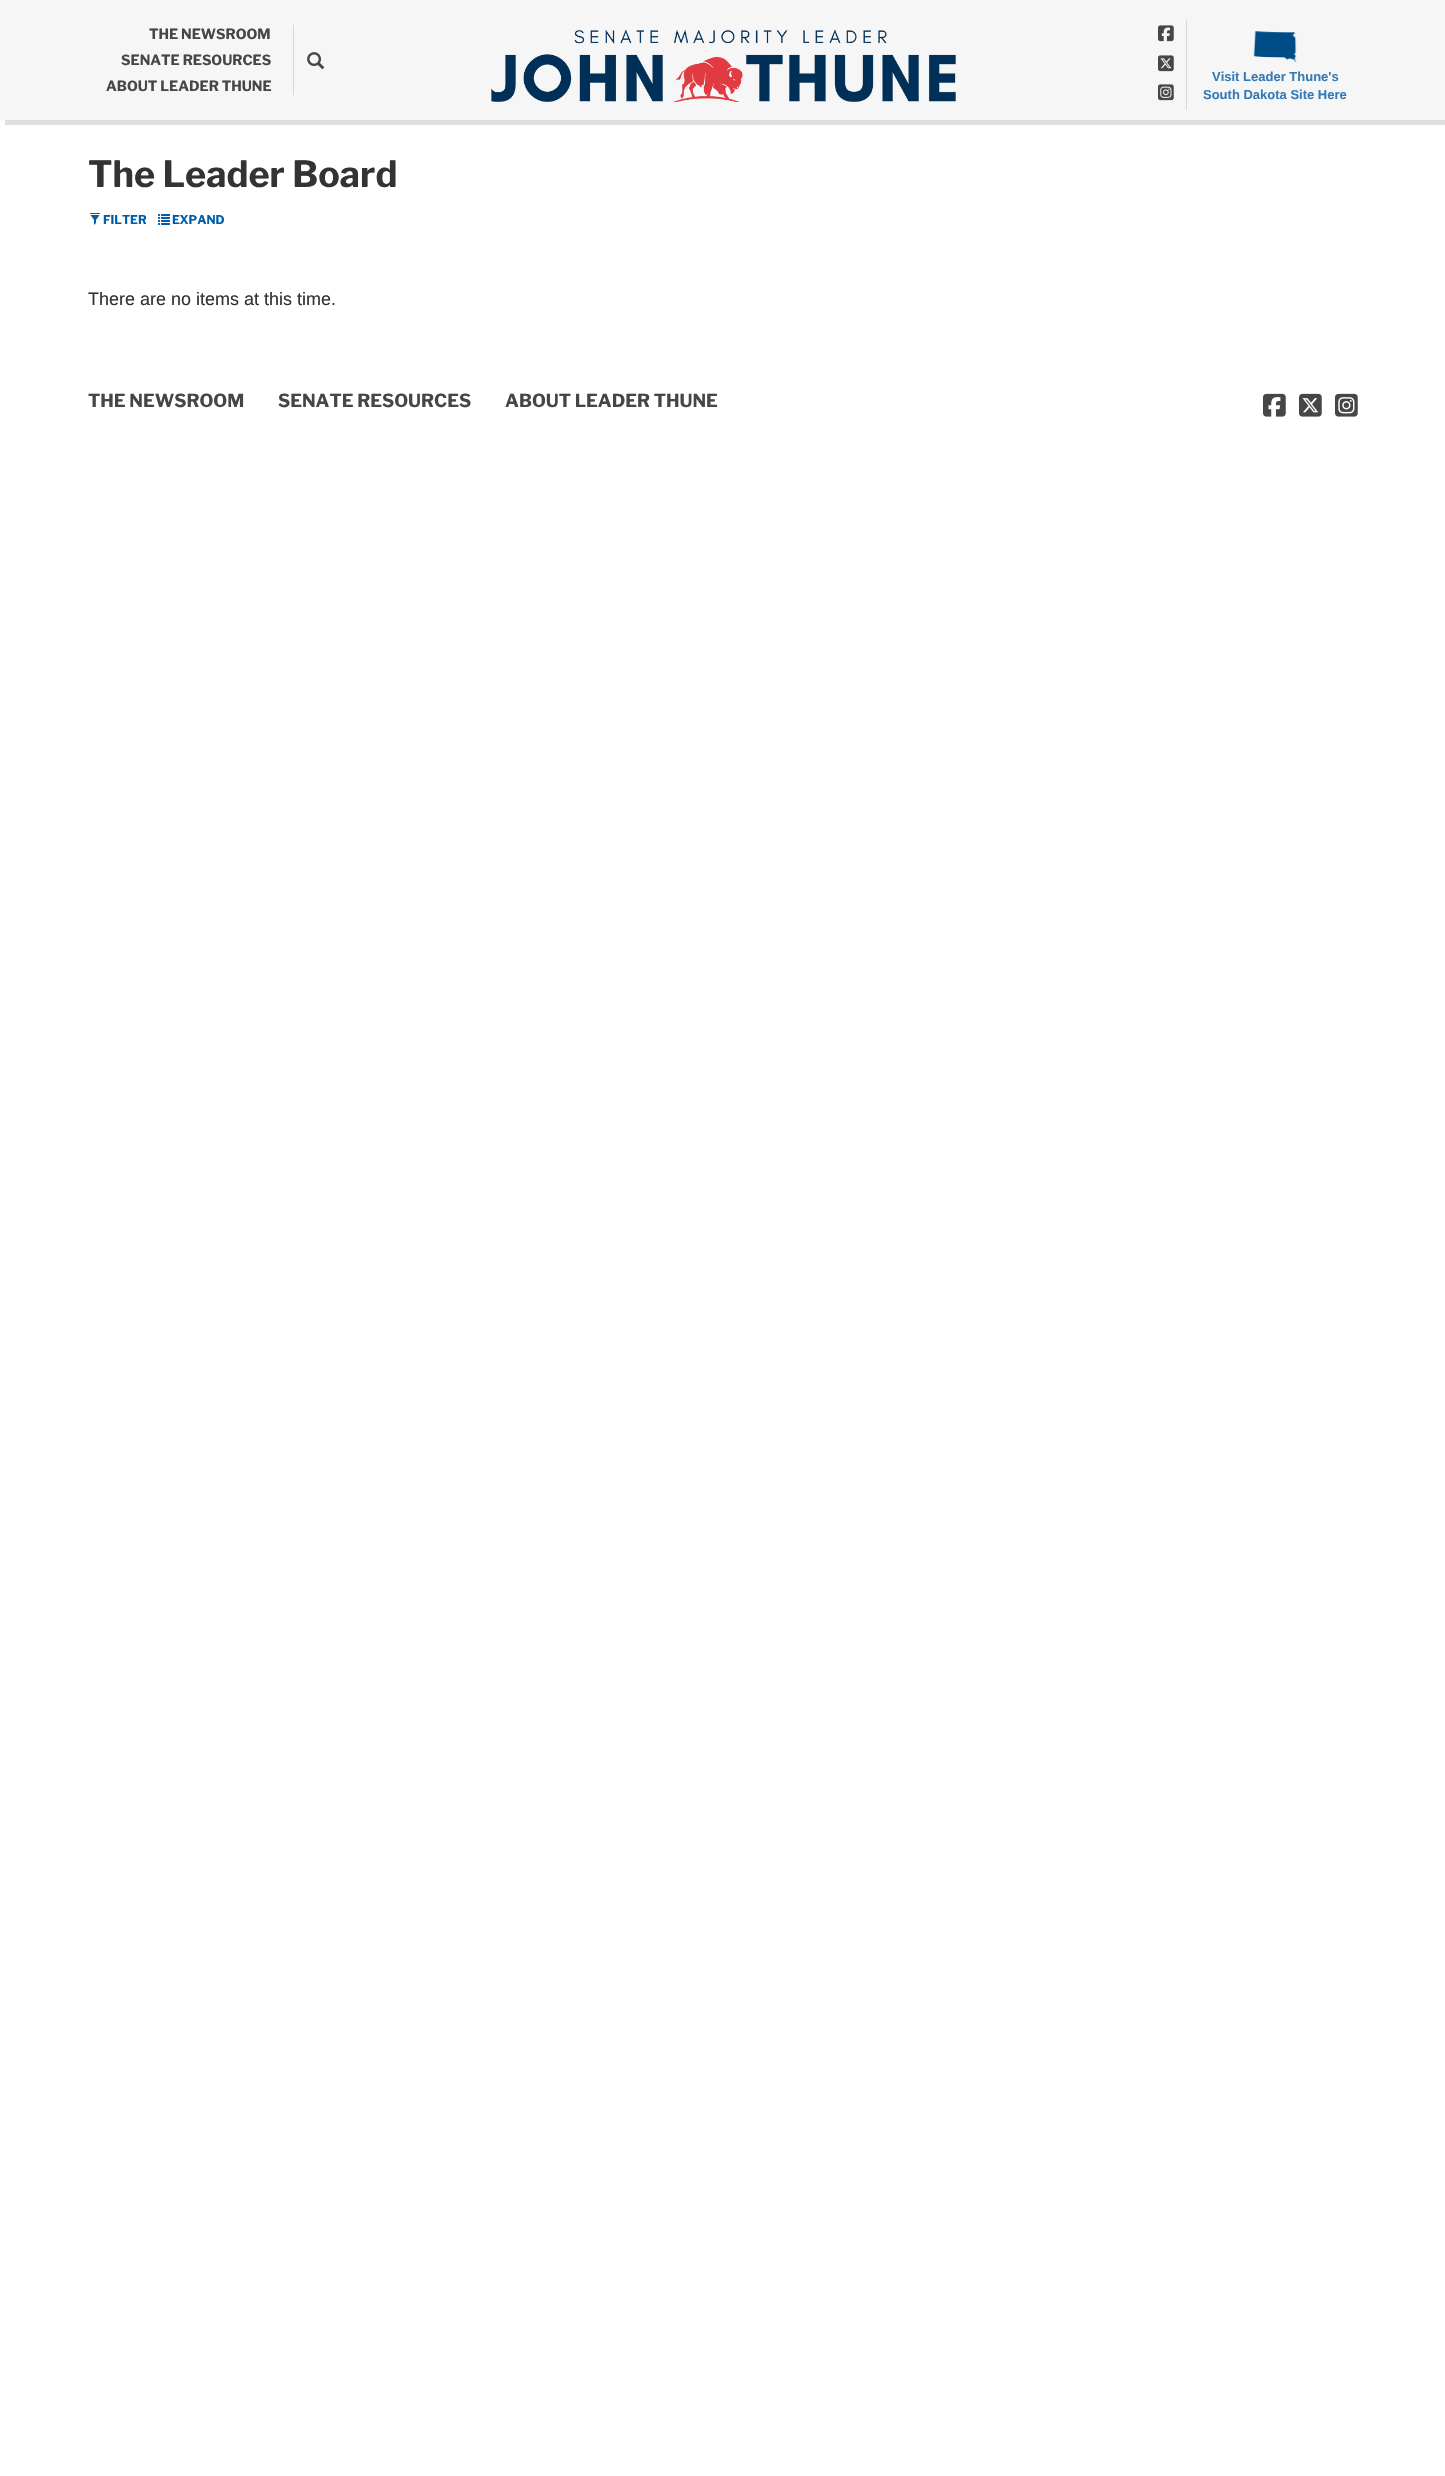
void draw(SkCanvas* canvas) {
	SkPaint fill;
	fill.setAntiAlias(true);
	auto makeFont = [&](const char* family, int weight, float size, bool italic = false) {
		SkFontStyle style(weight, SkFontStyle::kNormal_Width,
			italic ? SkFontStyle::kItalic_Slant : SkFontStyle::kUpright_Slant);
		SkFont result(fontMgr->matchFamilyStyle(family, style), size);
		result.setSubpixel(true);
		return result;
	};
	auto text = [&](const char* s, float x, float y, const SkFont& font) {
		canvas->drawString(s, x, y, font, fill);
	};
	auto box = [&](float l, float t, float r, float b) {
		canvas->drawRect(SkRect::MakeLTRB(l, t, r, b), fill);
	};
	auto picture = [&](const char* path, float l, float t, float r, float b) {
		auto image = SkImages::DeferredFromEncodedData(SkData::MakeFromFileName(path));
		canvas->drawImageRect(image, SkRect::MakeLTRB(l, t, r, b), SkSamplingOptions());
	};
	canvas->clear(0xFFFFFFFF);
	fill.setColor(0xFFE0DFDF);
	canvas->drawPath(SkPathBuilder().moveTo(5, 120).lineTo(5, 125).lineTo(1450, 125).lineTo(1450, 5).lineTo(1445, 5).lineTo(1445, 120).close().detach(), fill);
	fill.setColor(0xFFF6F6F6);
	box(0, 0, 1445, 120);
	fill.setColor(0xFFD7D7D7);
	box(293, 25, 294, 95);
	picture("image0.png", 307, 52, 325, 70);
	picture("image1.png", 491, 30, 956, 102);
	box(1186, 20, 1187, 110);
	picture("image2.png", 1158, 25, 1174, 42);
	picture("image3.png", 1158, 55, 1174, 72);
	picture("image4.png", 1158, 84, 1174, 101);
	picture("image5.png", 1253, 31, 1297, 63);
	picture("image6.png", 90, 213, 100, 225);
	picture("image7.png", 158, 214, 170, 225);
	picture("image8.png", 1263, 393, 1286, 417);
	picture("image9.png", 1299, 393, 1322, 417);
	picture("image10.png", 1335, 393, 1358, 417);
	auto font1 = makeFont("Libre Franklin", 700, 14);
	fill.setColor(0xFF464646);
	text("THE NEWSROOM", 149, 39, font1);
	text("SENATE RESOURCES", 121, 65, font1);
	text("ABOUT LEADER THUNE", 106, 91, font1);
	auto font2 = makeFont("Liberation Sans", 700, 13);
	fill.setColor(0xFF337AB7);
	text("Visit Leader Thune's", 1212, 81, font2);
	text("South Dakota Site Here", 1203, 99, font2);
	auto font3 = makeFont("Libre Franklin", 700, 36);
	fill.setColor(0xFF333333);
	text("The Leader Board", 88, 187, font3);
	auto font4 = makeFont("Libre Franklin", 700, 12);
	fill.setColor(0xFF005DAA);
	text("FILTER", 103, 224, font4);
	text("EXPAND", 172, 224, font4);
	auto font5 = makeFont("Liberation Sans", 400, 18);
	fill.setColor(0xFF333333);
	text("There are no items at this time.", 88, 305, font5);
	auto font6 = makeFont("Libre Franklin", 700, 18);
	fill.setColor(0xFF464646);
	text("THE NEWSROOM", 88, 407, font6);
	text("SENATE RESOURCES", 278, 407, font6);
	text("ABOUT LEADER THUNE", 505, 407, font6);
}
